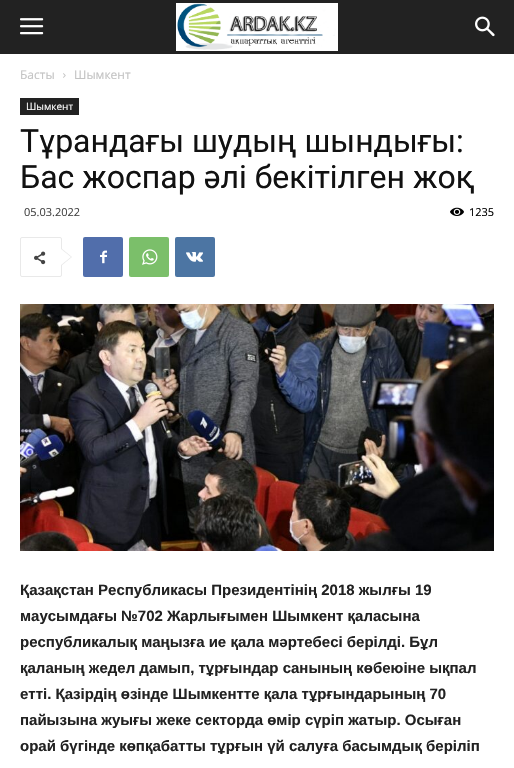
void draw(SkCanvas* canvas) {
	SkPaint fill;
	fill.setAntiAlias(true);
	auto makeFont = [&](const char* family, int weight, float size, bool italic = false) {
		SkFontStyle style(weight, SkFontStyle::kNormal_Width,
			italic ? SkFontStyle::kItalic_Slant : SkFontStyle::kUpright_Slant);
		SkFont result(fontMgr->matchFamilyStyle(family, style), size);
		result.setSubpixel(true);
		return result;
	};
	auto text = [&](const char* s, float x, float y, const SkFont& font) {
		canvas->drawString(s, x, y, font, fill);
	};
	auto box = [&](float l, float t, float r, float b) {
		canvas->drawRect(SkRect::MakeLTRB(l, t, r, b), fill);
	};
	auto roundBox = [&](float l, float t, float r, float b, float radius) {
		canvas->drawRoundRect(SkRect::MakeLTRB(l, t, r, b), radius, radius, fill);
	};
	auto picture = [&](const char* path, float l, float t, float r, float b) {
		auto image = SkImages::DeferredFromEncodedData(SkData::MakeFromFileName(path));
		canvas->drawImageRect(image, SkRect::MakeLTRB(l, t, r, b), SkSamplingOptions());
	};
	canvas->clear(0xFFFFFFFF);
	fill.setColor(0xFF222222);
	box(0, 0, 514, 54);
	picture("image0.png", 20, 18, 44, 35);
	picture("image1.png", 176, 3, 338, 51);
	picture("image2.png", 475, 16, 495, 37);
	picture("image3.png", 63, 73, 66, 78);
	box(20, 98, 79, 115);
	picture("image4.png", 450, 207, 464, 216);
	fill.setStyle(SkPaint::kStroke_Style);
	fill.setStrokeWidth(1);
	fill.setColor(0xFFE9E9E9);
	canvas->drawRoundRect(SkRect::MakeLTRB(20.5f, 237.5f, 61.5f, 276.5f), 1.5f, 1.5f, fill);
	fill.setStyle(SkPaint::kFill_Style);
	canvas->drawPath(SkPathBuilder().moveTo(61, 266).lineTo(61, 248).lineTo(72, 257).close().detach(), fill);
	picture("image5.png", 34, 251, 46, 265);
	fill.setColor(0xFFFFFFFF);
	canvas->drawPath(SkPathBuilder().moveTo(61, 265).lineTo(61, 249).lineTo(71, 257).close().detach(), fill);
	fill.setColor(0xFF516EAB);
	roundBox(83, 237, 123, 277, 2);
	picture("image6.png", 100, 250, 107, 264);
	fill.setColor(0xFF7BBF6A);
	roundBox(129, 237, 169, 277, 2);
	picture("image7.png", 142, 249, 158, 265);
	fill.setColor(0xFF4C75A3);
	roundBox(175, 237, 215, 277, 2);
	picture("image8.png", 186, 252, 203, 262);
	picture("image9.png", 20, 304, 494, 551);
	auto font1 = makeFont("Open Sans", 400, 12);
	fill.setColor(0xFFC3C3C3);
	text("Басты", 20, 79, font1);
	text("Шымкент", 74, 79, font1);
	auto font2 = makeFont("Open Sans", 400, 10);
	fill.setColor(0xFFFFFFFF);
	text("Шымкент", 26, 110, font2);
	auto font3 = makeFont("Roboto", 400, 32);
	fill.setColor(0xFF111111);
	text("Тұрандағы шудың шындығы:", 20, 152, font3);
	text("Бас жоспар әлі бекітілген жоқ", 20, 188, font3);
	auto font4 = makeFont("Open Sans", 400, 11);
	fill.setColor(0xFF444444);
	text("05.03.2022", 24, 216, font4);
	fill.setColor(0xFF000000);
	text("1235", 469, 216, font4);
	auto font5 = makeFont("Liberation Sans", 700, 15);
	fill.setColor(0xFF222222);
	text("Қазақстан Республикасы Президентінің 2018 жылғы 19", 20, 595, font5);
	text("маусымдағы №702 Жарлығымен Шымкент қаласына", 20, 621, font5);
	text("республикалық маңызға ие қала мәртебесі берілді. Бұл", 20, 647, font5);
	text("қаланың жедел дамып, тұрғындар санының көбеюіне ықпал", 20, 673, font5);
	text("етті. Қазірдің өзінде Шымкентте қала тұрғындарының 70", 20, 699, font5);
	text("пайызына жуығы жеке секторда өмір сүріп жатыр. Осыған", 20, 725, font5);
	text("орай бүгінде көпқабатты тұрғын үй салуға басымдық беріліп", 20, 751, font5);
}
